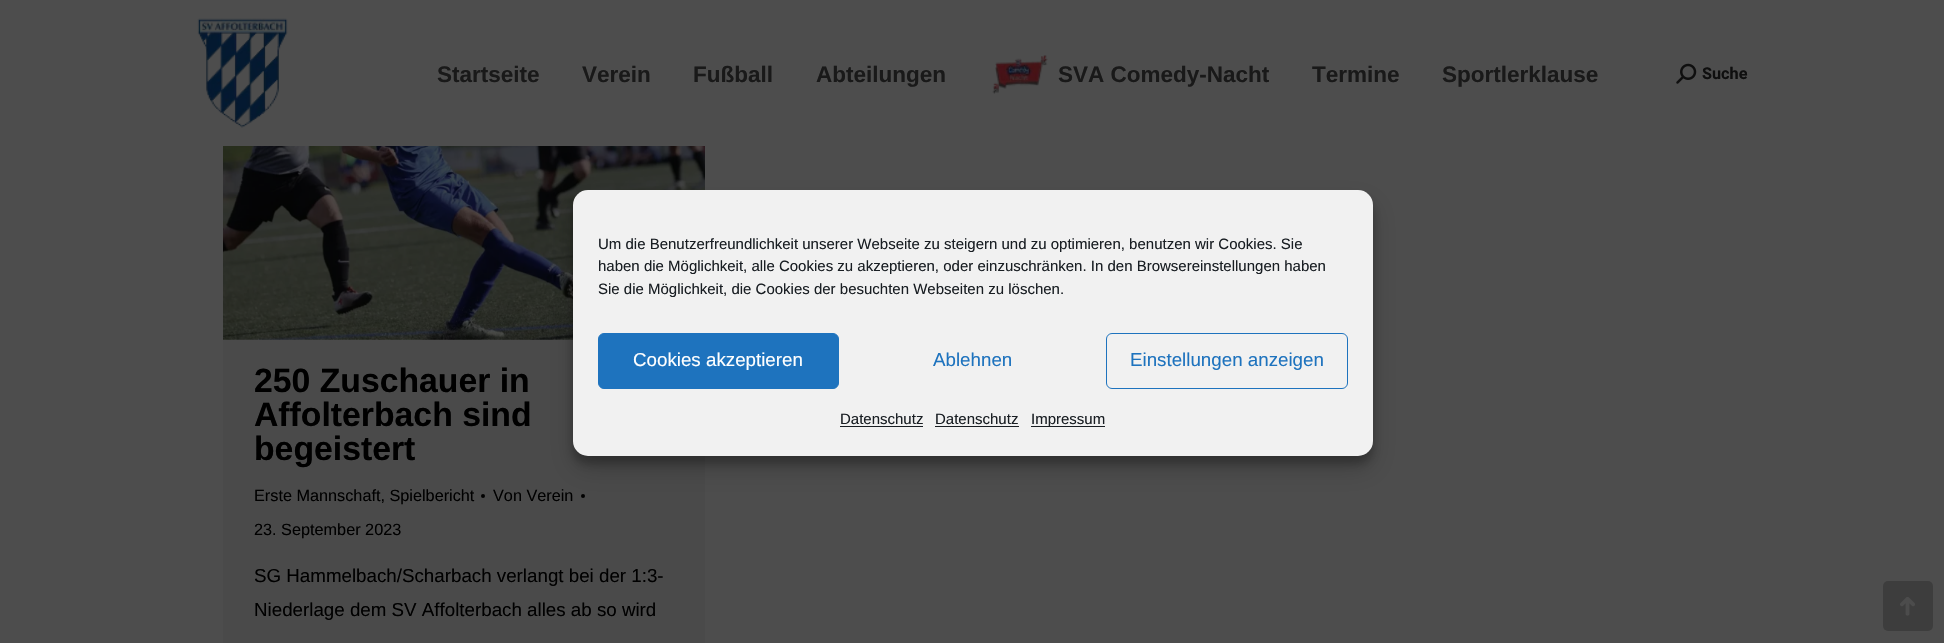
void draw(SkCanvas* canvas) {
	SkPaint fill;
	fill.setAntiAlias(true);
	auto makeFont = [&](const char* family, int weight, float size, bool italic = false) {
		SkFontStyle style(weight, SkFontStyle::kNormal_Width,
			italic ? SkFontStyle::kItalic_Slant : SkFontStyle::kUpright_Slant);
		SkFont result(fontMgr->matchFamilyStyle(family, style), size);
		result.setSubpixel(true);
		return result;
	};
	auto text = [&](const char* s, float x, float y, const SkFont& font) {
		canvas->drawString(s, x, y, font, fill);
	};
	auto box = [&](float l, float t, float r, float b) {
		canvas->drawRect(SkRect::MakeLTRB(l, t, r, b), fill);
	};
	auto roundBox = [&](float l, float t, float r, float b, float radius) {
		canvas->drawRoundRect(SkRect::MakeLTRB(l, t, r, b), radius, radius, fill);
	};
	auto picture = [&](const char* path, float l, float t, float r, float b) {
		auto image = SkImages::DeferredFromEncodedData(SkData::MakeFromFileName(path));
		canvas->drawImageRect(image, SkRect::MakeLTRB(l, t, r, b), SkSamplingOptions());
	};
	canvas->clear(0xFF4D4D4D);
	picture("image0.png", 197, 18, 288, 128);
	picture("image1.png", 992, 55, 1048, 94);
	picture("image2.png", 1676, 63, 1697, 84);
	fill.setColor(0xFF4A4A4A);
	box(223, 339, 705, 643);
	picture("image3.png", 223, 146, 705, 340);
	fill.setColor(0x3B000000);
	fill.setMaskFilter(SkMaskFilter::MakeBlur(kNormal_SkBlurStyle, 4));
	canvas->drawRoundRect(SkRect::MakeLTRB(573, 198, 1373, 464), 15, 15, fill);
	fill.setMaskFilter(nullptr);
	fill.setColor(0xFF000000);
	canvas->drawCircle(583, 496, 2, fill);
	fill.setColor(0x30000000);
	fill.setMaskFilter(SkMaskFilter::MakeBlur(kNormal_SkBlurStyle, 12.5f));
	canvas->drawRoundRect(SkRect::MakeLTRB(573, 203, 1373, 469), 15, 15, fill);
	fill.setMaskFilter(nullptr);
	fill.setColor(0xFFF1F1F1);
	roundBox(573, 190, 1373, 456, 15);
	fill.setColor(0xFF1E73BE);
	canvas->drawRoundRect(SkRect::MakeLTRB(598.5f, 333.5f, 838.5f, 388.5f), 5.5f, 5.5f, fill);
	fill.setStyle(SkPaint::kStroke_Style);
	fill.setStrokeWidth(1);
	canvas->drawRoundRect(SkRect::MakeLTRB(598.5f, 333.5f, 838.5f, 388.5f), 5.5f, 5.5f, fill);
	canvas->drawRoundRect(SkRect::MakeLTRB(1106.5f, 333.5f, 1347.5f, 388.5f), 5.5f, 5.5f, fill);
	fill.setStyle(SkPaint::kFill_Style);
	fill.setColor(0xFF191E23);
	box(840, 426, 923, 427);
	box(935, 426, 1019, 427);
	box(1031, 426, 1105, 427);
	fill.setColor(0xFF000000);
	canvas->drawCircle(483, 496, 2, fill);
	fill.setColor(0xFF3D3D3D);
	roundBox(1883, 581, 1933, 631, 5);
	picture("image4.png", 1900, 597, 1915, 616);
	auto font1 = makeFont("Liberation Sans", 700, 22.5f);
	fill.setColor(0xFF191919);
	text("Startseite", 437, 82, font1);
	text("Verein", 582, 82, font1);
	text("Fußball", 693, 82, font1);
	text("Abteilungen", 816, 82, font1);
	text("SVA Comedy-Nacht", 1058, 82, font1);
	text("Termine", 1312, 82, font1);
	text("Sportlerklause", 1442, 82, font1);
	auto font2 = makeFont("Roboto", 700, 16.25f);
	fill.setColor(0xFF0F0F0F);
	text("Suche", 1702, 79, font2);
	auto font3 = makeFont("Liberation Sans", 400, 15);
	fill.setColor(0xFF191E23);
	text("Um die Benutzerfreundlichkeit unserer Webseite zu steigern und zu optimieren, benutzen wir Cookies. Sie", 598, 249, font3);
	text("haben die Möglichkeit, alle Cookies zu akzeptieren, oder einzuschränken. In den Browsereinstellungen haben", 598, 271, font3);
	text("Sie die Möglichkeit, die Cookies der besuchten Webseiten zu löschen.", 598, 294, font3);
	auto font4 = makeFont("Liberation Sans", 400, 18.75f);
	fill.setColor(0xFFFFFFFF);
	text("Cookies akzeptieren", 633, 366, font4);
	fill.setColor(0xFF1E73BE);
	text("Ablehnen", 933, 366, font4);
	text("Einstellungen anzeigen", 1130, 366, font4);
	fill.setColor(0xFF191E23);
	text("Datenschutz", 840, 424, font3);
	text("Datenschutz", 935, 424, font3);
	text("Impressum", 1031, 424, font3);
	auto font5 = makeFont("Liberation Sans", 700, 33.75f);
	fill.setColor(0xFF000000);
	text("250 Zuschauer in", 254, 392, font5);
	text("Affolterbach sind", 254, 426, font5);
	text("begeistert", 254, 460, font5);
	auto font6 = makeFont("Liberation Sans", 400, 16.25f);
	text("Erste Mannschaft, Spielbericht", 254, 501, font6);
	text("Von Verein", 493, 501, font6);
	text("23. September 2023", 254, 535, font6);
	text("SG Hammelbach/Scharbach verlangt bei der 1:3-", 254, 582, font4);
	text("Niederlage dem SV Affolterbach alles ab so wird", 254, 616, font4);
}
